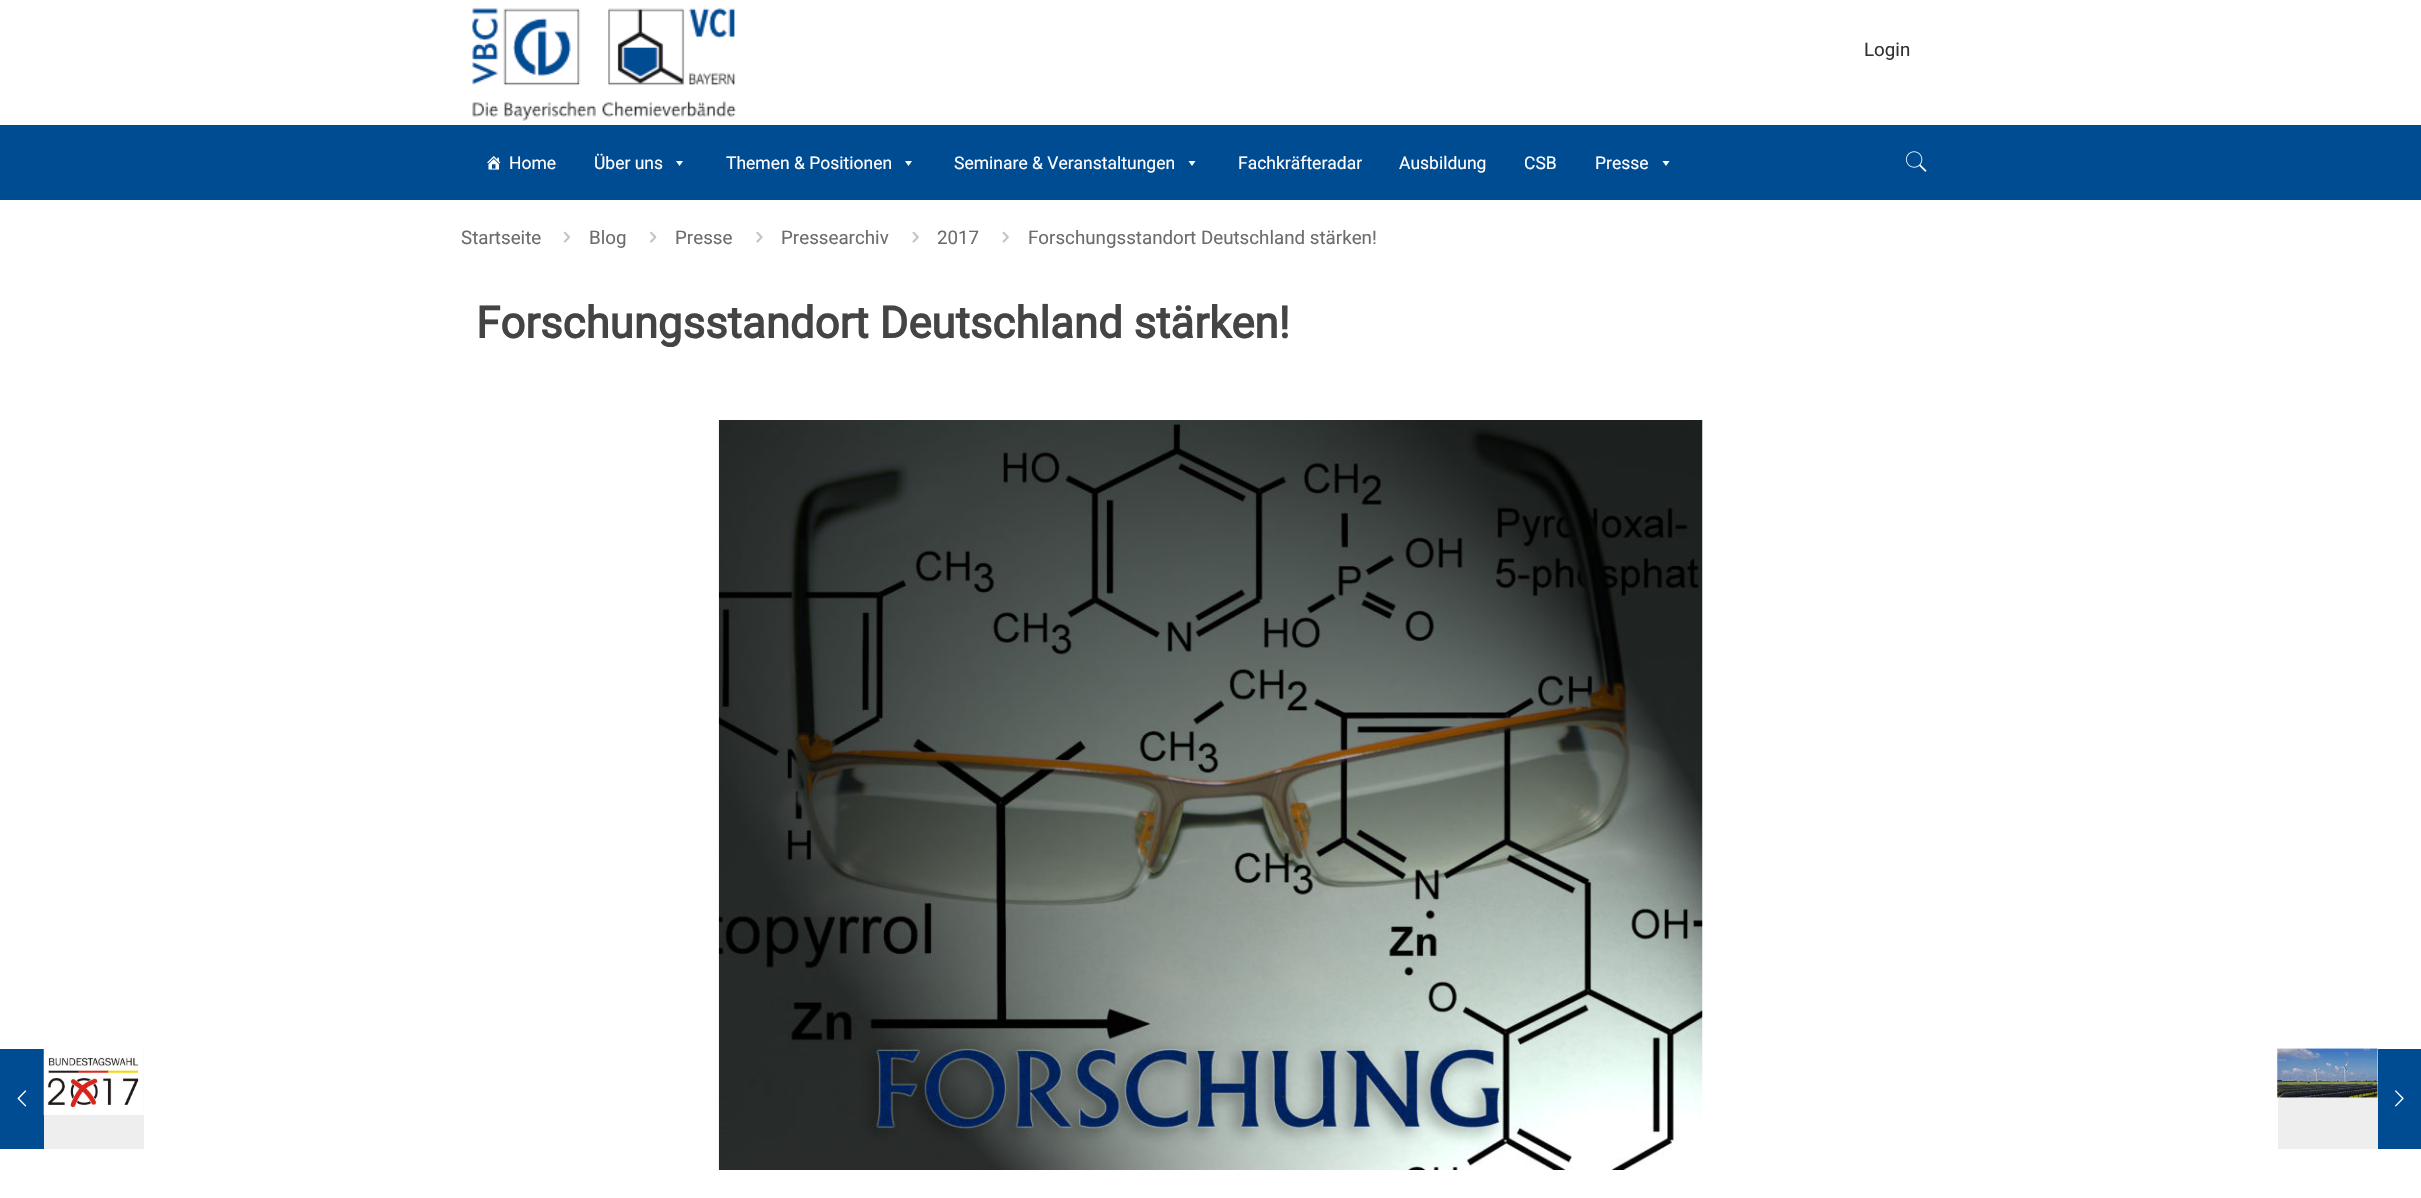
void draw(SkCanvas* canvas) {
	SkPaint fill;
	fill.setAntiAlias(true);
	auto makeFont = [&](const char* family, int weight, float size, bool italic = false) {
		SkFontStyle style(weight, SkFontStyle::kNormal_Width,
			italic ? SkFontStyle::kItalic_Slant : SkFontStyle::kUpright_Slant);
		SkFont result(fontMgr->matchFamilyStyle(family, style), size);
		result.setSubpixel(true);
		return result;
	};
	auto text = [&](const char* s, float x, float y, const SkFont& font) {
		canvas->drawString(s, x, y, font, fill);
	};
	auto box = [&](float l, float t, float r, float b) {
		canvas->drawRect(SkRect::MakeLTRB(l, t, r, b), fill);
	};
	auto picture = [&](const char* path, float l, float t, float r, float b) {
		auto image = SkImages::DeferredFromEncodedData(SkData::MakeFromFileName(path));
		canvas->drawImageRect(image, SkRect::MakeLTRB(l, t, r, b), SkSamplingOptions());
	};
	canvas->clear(0xFFFFFFFF);
	picture("image0.png", 472, 8, 736, 121);
	fill.setColor(0xFF004C93);
	box(0, 125, 2421, 200);
	picture("image1.png", 487, 156, 501, 170);
	fill.setColor(0xFFFFFFFF);
	canvas->drawPath(SkPathBuilder().moveTo(683, 161).lineTo(679.5f, 166).lineTo(676, 161).close().detach(), fill);
	canvas->drawPath(SkPathBuilder().moveTo(912, 161).lineTo(908.5f, 166).lineTo(905, 161).close().detach(), fill);
	canvas->drawPath(SkPathBuilder().moveTo(1195.5f, 161).lineTo(1192, 166).lineTo(1188.5f, 161).close().detach(), fill);
	canvas->drawPath(SkPathBuilder().moveTo(1669.5f, 161).lineTo(1666, 166).lineTo(1662.5f, 161).close().detach(), fill);
	picture("image2.png", 1906, 151, 1927, 172);
	picture("image3.png", 563, 231, 570, 243);
	picture("image4.png", 650, 231, 657, 243);
	picture("image5.png", 756, 231, 763, 243);
	picture("image6.png", 912, 231, 919, 243);
	picture("image6.png", 1002, 231, 1009, 243);
	picture("image7.png", 718, 420, 1703, 1170);
	picture("image8.png", 2277, 1048, 2378, 1098);
	fill.setColor(0xFF004C93);
	box(0, 1049, 44, 1149);
	picture("image9.png", 17, 1090, 27, 1107);
	fill.setColor(0xFFEEEEEE);
	box(44, 1049, 144, 1149);
	picture("image10.png", 43, 1049, 144, 1115);
	box(2278, 1049, 2378, 1149);
	picture("image11.png", 2277, 1048, 2378, 1098);
	fill.setColor(0xFF004C93);
	box(2378, 1049, 2421, 1149);
	picture("image12.png", 2395, 1090, 2404, 1107);
	auto font1 = makeFont("Roboto", 400, 18.75f);
	fill.setColor(0xFF333333);
	text("Login", 1864, 56, font1);
	auto font2 = makeFont("Roboto", 400, 17.5f);
	fill.setColor(0xFFFFFFFF);
	text("Home", 509, 169, font2);
	text("Über uns", 594, 169, font2);
	text("Themen & Positionen", 726, 169, font2);
	text("Seminare & Veranstaltungen", 954, 169, font2);
	text("Fachkräfteradar", 1238, 169, font2);
	text("Ausbildung", 1399, 169, font2);
	text("CSB", 1524, 169, font2);
	text("Presse", 1595, 169, font2);
	fill.setColor(0xFF6C6C6C);
	text("Startseite", 461, 244, font1);
	text("Blog", 589, 244, font1);
	text("Presse", 675, 244, font1);
	text("Pressearchiv", 781, 244, font1);
	text("2017", 937, 244, font1);
	text("Forschungsstandort Deutschland stärken!", 1028, 244, font1);
	auto font3 = makeFont("Roboto", 700, 43.75f);
	fill.setColor(0xFF444444);
	text("Forschungsstandort Deutschland stärken!", 476, 338, font3);
}
